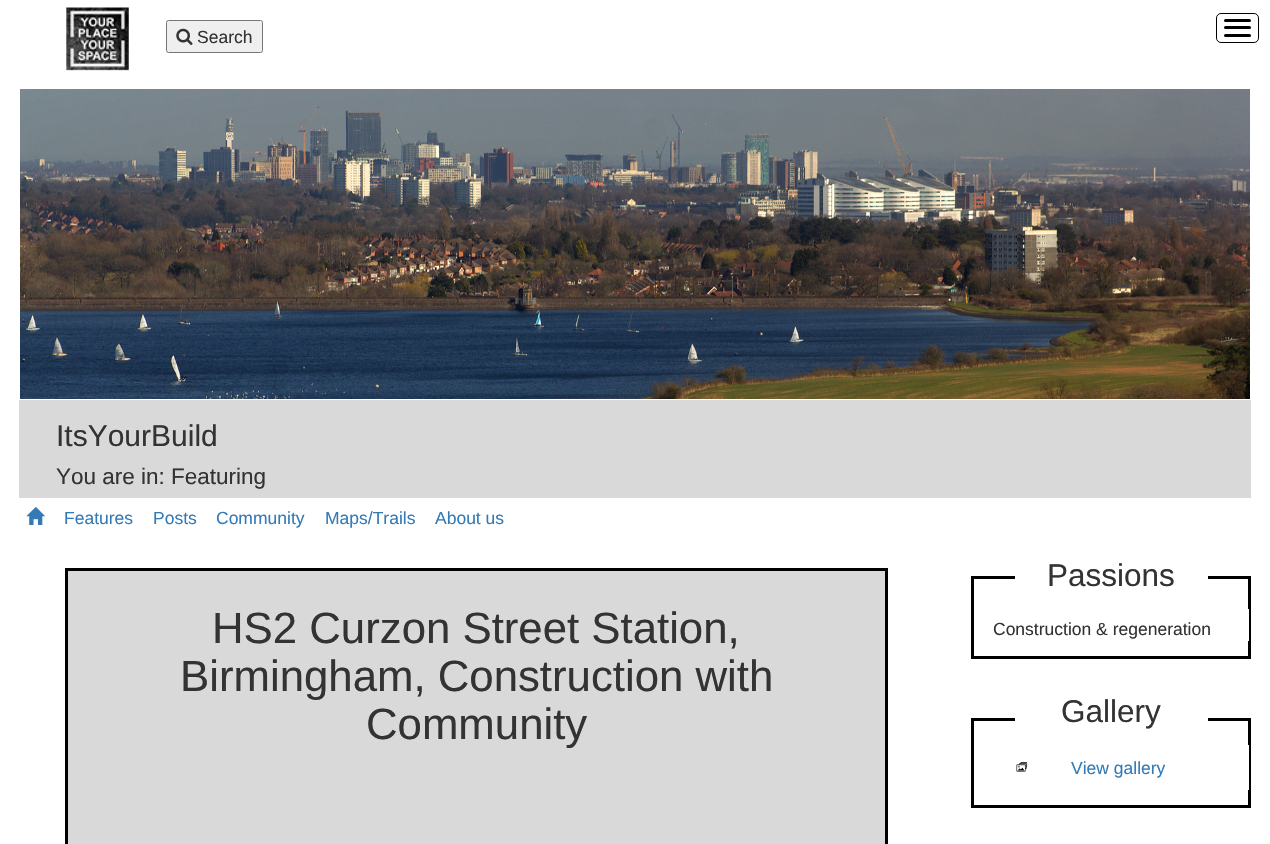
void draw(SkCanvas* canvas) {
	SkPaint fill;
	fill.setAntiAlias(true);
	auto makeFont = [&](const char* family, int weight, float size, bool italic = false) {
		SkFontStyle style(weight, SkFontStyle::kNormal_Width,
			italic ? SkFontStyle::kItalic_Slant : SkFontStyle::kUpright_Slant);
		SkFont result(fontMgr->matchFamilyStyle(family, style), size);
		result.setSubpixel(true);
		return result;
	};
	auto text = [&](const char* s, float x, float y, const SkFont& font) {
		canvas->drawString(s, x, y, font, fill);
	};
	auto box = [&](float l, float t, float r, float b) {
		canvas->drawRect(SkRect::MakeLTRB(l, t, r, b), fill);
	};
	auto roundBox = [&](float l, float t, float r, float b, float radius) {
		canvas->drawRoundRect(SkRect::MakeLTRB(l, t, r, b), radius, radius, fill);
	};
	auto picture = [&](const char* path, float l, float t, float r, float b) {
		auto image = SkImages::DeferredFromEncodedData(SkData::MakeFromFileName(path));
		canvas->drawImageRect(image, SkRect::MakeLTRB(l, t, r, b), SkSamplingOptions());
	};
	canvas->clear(0xFFFFFFFF);
	picture("image0.png", 66, 7, 129, 71);
	fill.setColor(0xFFEFEFEF);
	canvas->drawRoundRect(SkRect::MakeLTRB(166.5f, 20.5f, 262.5f, 52.5f), 2, 2, fill);
	fill.setStyle(SkPaint::kStroke_Style);
	fill.setStrokeWidth(1);
	fill.setColor(0xFF767676);
	canvas->drawRoundRect(SkRect::MakeLTRB(166.5f, 20.5f, 262.5f, 52.5f), 2, 2, fill);
	picture("image1.png", 176, 28, 193, 45);
	fill.setColor(0xFF000000);
	canvas->drawRoundRect(SkRect::MakeLTRB(1216.5f, 13.5f, 1258.5f, 42.5f), 4.5f, 4.5f, fill);
	fill.setStyle(SkPaint::kFill_Style);
	roundBox(1224, 19, 1251, 22, 1.5f);
	roundBox(1224, 26, 1251, 29, 1.5f);
	roundBox(1224, 34, 1251, 37, 1.5f);
	fill.setColor(0xFFD9D9D9);
	box(19, 400, 1251, 498);
	picture("image2.png", 20, 89, 1250, 399);
	picture("image3.png", 26, 507, 45, 525);
	canvas->drawRect(SkRect::MakeLTRB(66.5f, 569.5f, 886.5f, 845.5f), fill);
	fill.setStyle(SkPaint::kStroke_Style);
	fill.setStrokeWidth(3);
	fill.setColor(0xFF000000);
	canvas->drawRect(SkRect::MakeLTRB(66.5f, 569.5f, 886.5f, 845.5f), fill);
	canvas->drawRect(SkRect::MakeLTRB(972.5f, 577.5f, 1249.5f, 657.5f), fill);
	fill.setStyle(SkPaint::kFill_Style);
	fill.setColor(0xFFFFFFFF);
	box(1015, 576, 1208, 579);
	box(1248, 609, 1249, 641);
	fill.setStyle(SkPaint::kStroke_Style);
	fill.setColor(0xFF000000);
	canvas->drawRect(SkRect::MakeLTRB(972.5f, 719.5f, 1249.5f, 806.5f), fill);
	fill.setStyle(SkPaint::kFill_Style);
	fill.setColor(0xFFFFFFFF);
	box(1015, 718, 1208, 721);
	box(1248, 745, 1249, 790);
	picture("image4.png", 1016, 762, 1028, 772);
	auto font1 = makeFont("Liberation Sans", 400, 17.5f);
	fill.setColor(0xFF333333);
	text("Search", 197, 43, font1);
	auto font2 = makeFont("Liberation Sans", 400, 30);
	text("ItsYourBuild", 56, 446, font2);
	auto font3 = makeFont("Liberation Sans", 400, 22.5f);
	text("You are in: Featuring", 56, 484, font3);
	fill.setColor(0xFF337AB7);
	text("Features", 64, 524, font1);
	text("Posts", 153, 524, font1);
	text("Community", 216, 524, font1);
	text("Maps/Trails", 325, 524, font1);
	text("About us", 435, 524, font1);
	auto font4 = makeFont("Liberation Sans", 400, 43.75f);
	fill.setColor(0xFF333333);
	text("HS2 Curzon Street Station,", 212, 643, font4);
	text("Birmingham, Construction with", 180, 691, font4);
	text("Community", 366, 739, font4);
	auto font5 = makeFont("Liberation Sans", 400, 31.5f);
	text("Passions", 1047, 586, font5);
	text("Construction & regeneration", 993, 635, font1);
	text("Gallery", 1061, 722, font5);
	fill.setColor(0xFF337AB7);
	text("View gallery", 1071, 774, font1);
}
